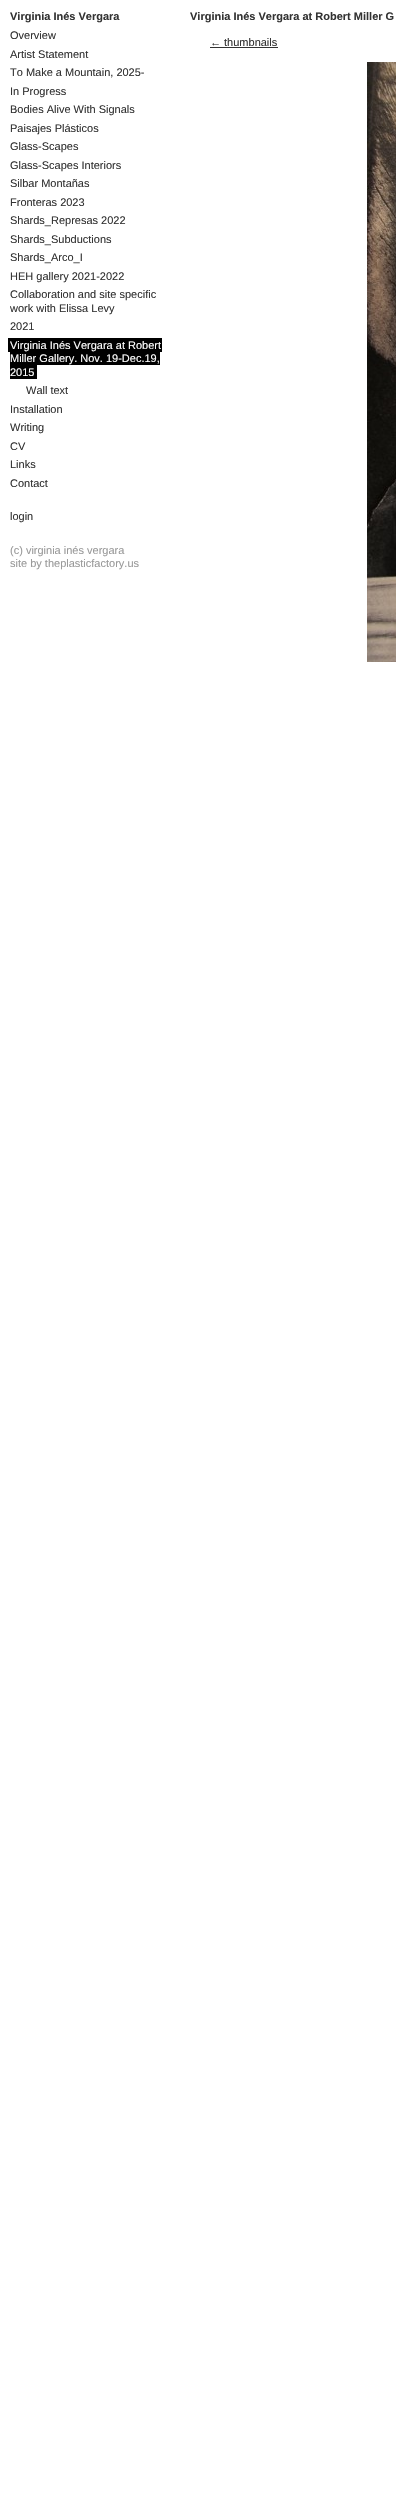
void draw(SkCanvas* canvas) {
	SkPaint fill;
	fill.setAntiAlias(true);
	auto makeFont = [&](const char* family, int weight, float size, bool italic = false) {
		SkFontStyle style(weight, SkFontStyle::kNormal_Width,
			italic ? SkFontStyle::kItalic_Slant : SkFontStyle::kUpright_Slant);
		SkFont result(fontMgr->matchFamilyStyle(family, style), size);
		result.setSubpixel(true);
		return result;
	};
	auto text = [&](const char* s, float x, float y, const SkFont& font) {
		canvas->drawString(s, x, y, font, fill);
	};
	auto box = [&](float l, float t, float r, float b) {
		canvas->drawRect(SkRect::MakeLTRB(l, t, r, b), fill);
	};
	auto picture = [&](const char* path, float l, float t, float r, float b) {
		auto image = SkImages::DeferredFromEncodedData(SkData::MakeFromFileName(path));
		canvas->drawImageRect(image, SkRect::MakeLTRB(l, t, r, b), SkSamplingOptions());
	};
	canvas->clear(0xFFFFFFFF);
	fill.setColor(0xFF333333);
	box(210, 47, 278, 48);
	picture("image0.png", 367, 62, 396, 662);
	fill.setColor(0xFF000000);
	box(8, 338, 162, 352);
	box(10, 352, 160, 365);
	box(10, 365, 37, 379);
	auto font1 = makeFont("Liberation Sans", 700, 11);
	fill.setColor(0xFF333333);
	text("Virginia Inés Vergara", 10, 20, font1);
	text("Virginia Inés Vergara at Robert Miller G", 190, 20, font1);
	auto font2 = makeFont("Liberation Sans", 400, 11);
	text("← thumbnails", 210, 46, font2);
	text("Overview", 10, 39, font2);
	text("Artist Statement", 10, 58, font2);
	text("To Make a Mountain, 2025-", 10, 76, font2);
	text("In Progress", 10, 95, font2);
	text("Bodies Alive With Signals", 10, 113, font2);
	text("Paisajes Plásticos", 10, 132, font2);
	text("Glass-Scapes", 10, 150, font2);
	text("Glass-Scapes Interiors", 10, 169, font2);
	text("Silbar Montañas", 10, 187, font2);
	text("Fronteras 2023", 10, 206, font2);
	text("Shards_Represas 2022", 10, 224, font2);
	text("Shards_Subductions", 10, 243, font2);
	text("Shards_Arco_I", 10, 261, font2);
	text("HEH gallery 2021-2022", 10, 280, font2);
	text("Collaboration and site specific", 10, 298, font2);
	text("work with Elissa Levy", 10, 312, font2);
	text("2021", 10, 330, font2);
	fill.setColor(0xFFFFFFFF);
	text("Virginia Inés Vergara at Robert", 10, 349, font2);
	text("Miller Gallery. Nov. 19-Dec.19,", 10, 362, font2);
	text("2015", 10, 376, font2);
	fill.setColor(0xFF333333);
	text("Wall text", 26, 394, font2);
	text("Installation", 10, 413, font2);
	text("Writing", 10, 431, font2);
	text("CV", 10, 450, font2);
	text("Links", 10, 468, font2);
	text("Contact", 10, 487, font2);
	text("login", 10, 520, font2);
	fill.setColor(0xFF999999);
	text("(c) virginia inés vergara", 10, 554, font2);
	text("site by theplasticfactory.us", 10, 567, font2);
}
